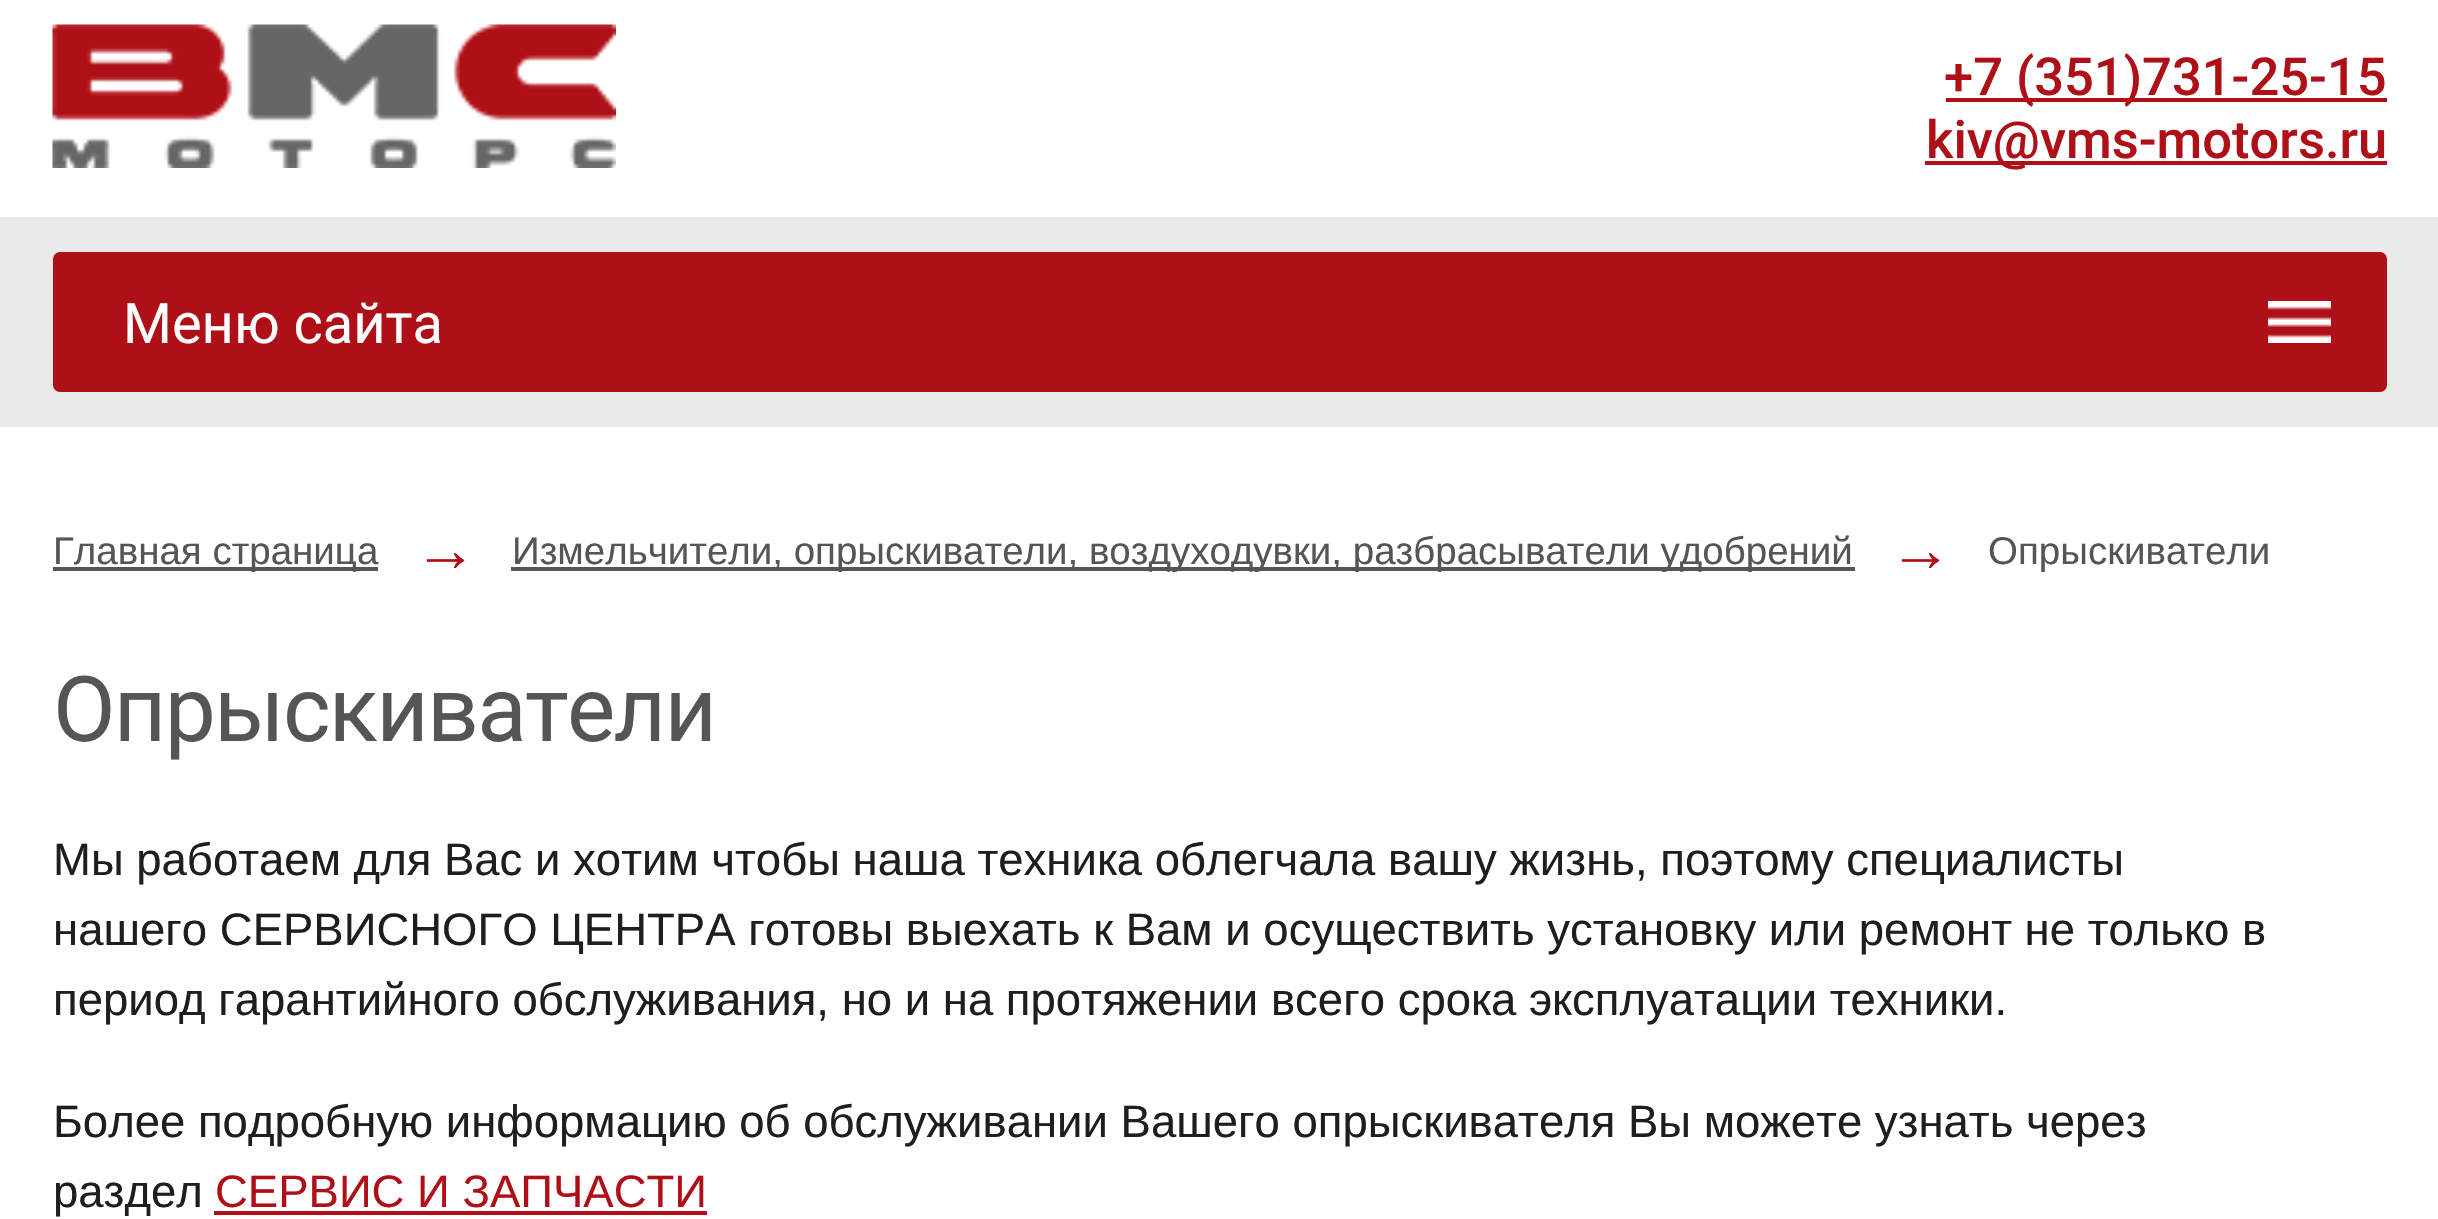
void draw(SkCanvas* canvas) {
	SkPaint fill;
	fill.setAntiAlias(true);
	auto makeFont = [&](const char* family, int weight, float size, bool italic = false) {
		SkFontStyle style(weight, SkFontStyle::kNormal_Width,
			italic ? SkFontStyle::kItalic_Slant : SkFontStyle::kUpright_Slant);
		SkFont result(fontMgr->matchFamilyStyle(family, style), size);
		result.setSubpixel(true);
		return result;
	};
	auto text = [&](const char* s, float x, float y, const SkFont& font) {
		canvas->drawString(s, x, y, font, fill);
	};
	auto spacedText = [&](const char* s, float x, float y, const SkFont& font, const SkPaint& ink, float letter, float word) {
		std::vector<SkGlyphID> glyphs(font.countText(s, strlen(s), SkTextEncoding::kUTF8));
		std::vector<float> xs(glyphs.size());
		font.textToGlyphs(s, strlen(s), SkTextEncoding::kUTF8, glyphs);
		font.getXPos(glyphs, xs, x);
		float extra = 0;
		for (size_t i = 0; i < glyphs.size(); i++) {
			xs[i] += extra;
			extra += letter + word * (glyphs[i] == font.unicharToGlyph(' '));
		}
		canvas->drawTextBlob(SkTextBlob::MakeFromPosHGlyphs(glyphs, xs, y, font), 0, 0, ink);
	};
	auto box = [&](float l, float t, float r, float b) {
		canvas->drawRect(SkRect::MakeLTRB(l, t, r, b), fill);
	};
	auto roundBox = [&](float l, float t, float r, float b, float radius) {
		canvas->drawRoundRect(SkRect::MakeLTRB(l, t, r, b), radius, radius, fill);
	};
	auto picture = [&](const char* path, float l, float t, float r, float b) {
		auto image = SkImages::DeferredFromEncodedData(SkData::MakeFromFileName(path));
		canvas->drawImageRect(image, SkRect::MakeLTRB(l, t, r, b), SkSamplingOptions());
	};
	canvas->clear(0xFFFFFFFF);
	picture("image0.png", 52, 24, 616, 168);
	fill.setColor(0xFFAF0F16);
	box(1946, 98, 2387, 102);
	box(1925, 161, 2387, 165);
	fill.setColor(0xFFEBEAEA);
	box(0, 217, 2438, 427);
	fill.setColor(0xFFAF0F16);
	roundBox(53, 252, 2387, 392, 7);
	picture("image1.png", 2268, 301, 2331, 343);
	fill.setColor(0xFF555555);
	box(53, 567, 378, 571);
	box(511, 567, 1855, 571);
	fill.setColor(0xFFAF0F16);
	box(214, 1211, 707, 1215);
	auto font1 = makeFont("Roboto", 500, 52.5f);
	text("+7 (351)731-25-15", 1944, 95, font1);
	text("kiv@vms-motors.ru", 1926, 158, font1);
	auto font2 = makeFont("Roboto", 400, 56);
	fill.setColor(0xFFFFFFFF);
	text("Меню сайта", 123, 343, font2);
	auto font3 = makeFont("Liberation Sans", 400, 38.5f);
	fill.setColor(0xFF555555);
	text("Главная страница", 53, 564, font3);
	auto font4 = makeFont("Liberation Sans", 400, 63);
	fill.setColor(0xFFAF0F16);
	text("→", 414, 571, font4);
	fill.setColor(0xFF555555);
	text("Измельчители, опрыскиватели, воздуходувки, разбрасыватели удобрений", 512, 564, font3);
	fill.setColor(0xFFAF0F16);
	text("→", 1889, 571, font4);
	fill.setColor(0xFF555555);
	text("Опрыскиватели", 1988, 564, font3);
	auto font5 = makeFont("Roboto", 400, 91);
	spacedText("Опрыскиватели", 53, 741, font5, fill, -1.75f, 0);
	auto font6 = makeFont("Liberation Sans", 400, 45.5f);
	fill.setColor(0xFF1F1D1D);
	text("Мы работаем для Вас и хотим чтобы наша техника облегчала вашу жизнь, поэтому специалисты", 53, 875, font6);
	text("нашего СЕРВИСНОГО ЦЕНТРА готовы выехать к Вам и осуществить установку или ремонт не только в", 53, 945, font6);
	text("период гарантийного обслуживания, но и на протяжении всего срока эксплуатации техники.", 53, 1015, font6);
	text("Более подробную информацию об обслуживании Вашего опрыскивателя Вы можете узнать через", 53, 1137, font6);
	text("раздел", 53, 1207, font6);
	fill.setColor(0xFFAF0F16);
	text("СЕРВИС И ЗАПЧАСТИ", 215, 1207, font6);
}
